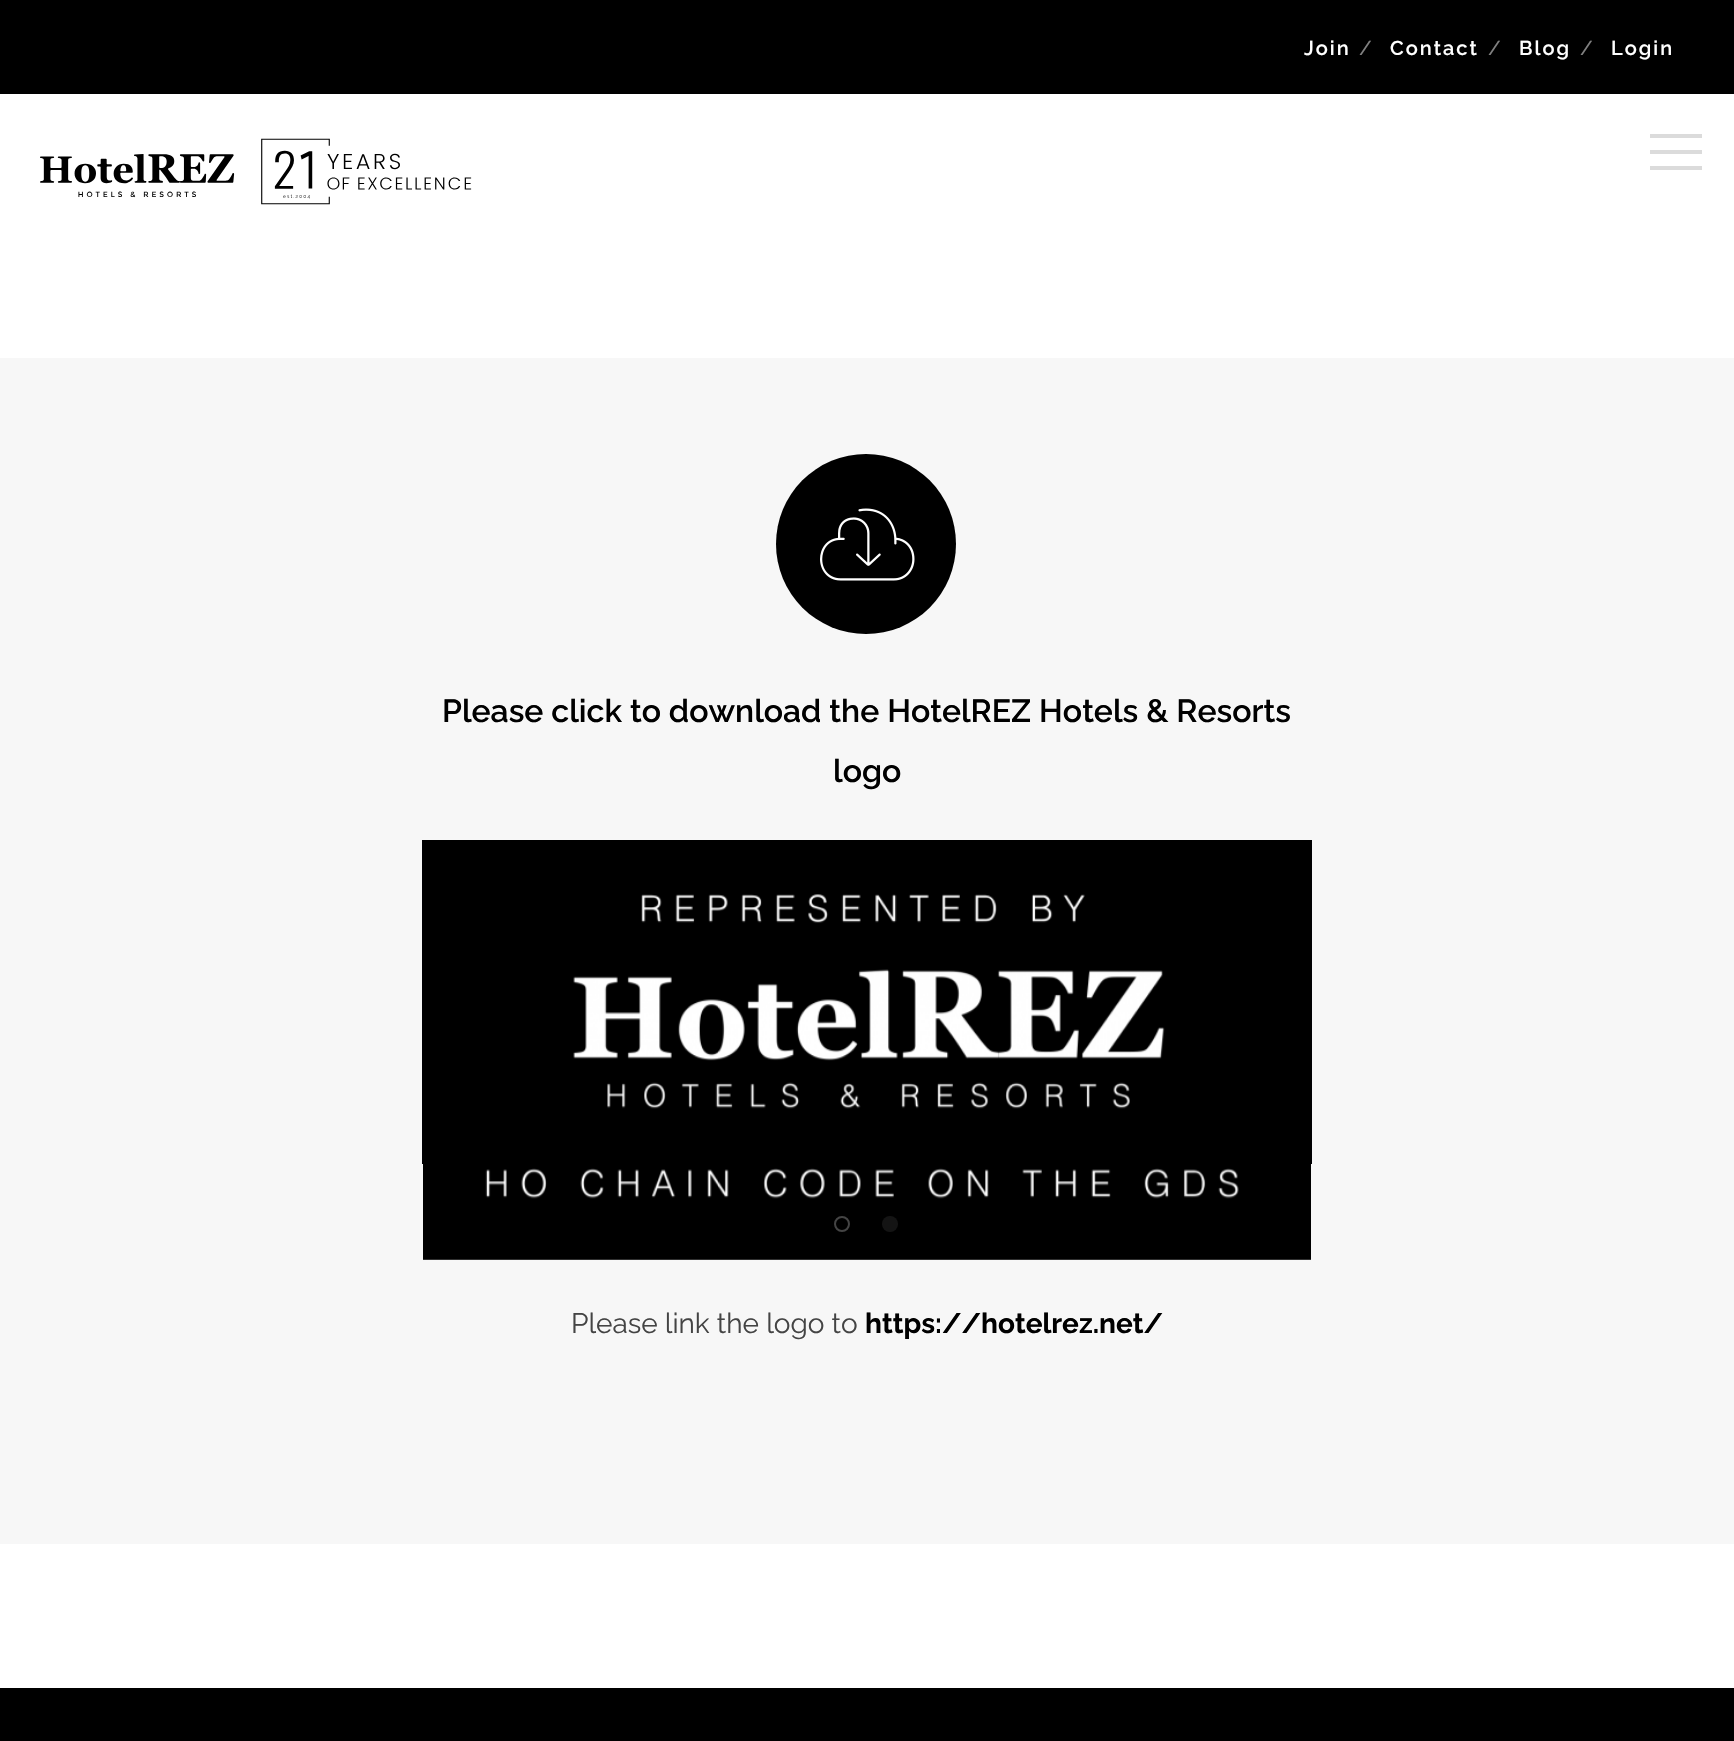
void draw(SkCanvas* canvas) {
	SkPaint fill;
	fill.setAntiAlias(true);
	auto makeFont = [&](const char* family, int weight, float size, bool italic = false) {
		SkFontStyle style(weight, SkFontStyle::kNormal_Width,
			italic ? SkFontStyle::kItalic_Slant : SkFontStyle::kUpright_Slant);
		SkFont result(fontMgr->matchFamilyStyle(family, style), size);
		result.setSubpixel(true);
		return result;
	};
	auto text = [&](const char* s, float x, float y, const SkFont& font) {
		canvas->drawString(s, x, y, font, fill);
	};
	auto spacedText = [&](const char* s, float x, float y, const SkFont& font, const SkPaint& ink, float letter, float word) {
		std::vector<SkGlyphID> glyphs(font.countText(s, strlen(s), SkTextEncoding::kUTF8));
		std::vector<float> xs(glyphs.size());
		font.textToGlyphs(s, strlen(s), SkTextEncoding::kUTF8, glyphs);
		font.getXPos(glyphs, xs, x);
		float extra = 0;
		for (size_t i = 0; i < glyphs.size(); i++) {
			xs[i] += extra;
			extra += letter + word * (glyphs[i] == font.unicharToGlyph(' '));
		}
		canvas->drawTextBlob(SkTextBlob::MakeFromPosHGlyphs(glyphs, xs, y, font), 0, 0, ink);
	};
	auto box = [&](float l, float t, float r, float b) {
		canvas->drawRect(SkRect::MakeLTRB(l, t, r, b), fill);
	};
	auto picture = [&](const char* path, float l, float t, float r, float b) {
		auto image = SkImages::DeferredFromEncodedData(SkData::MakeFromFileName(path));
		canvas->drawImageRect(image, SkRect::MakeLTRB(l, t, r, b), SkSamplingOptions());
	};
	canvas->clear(0xFFFFFFFF);
	fill.setColor(0xFF000000);
	box(0, 0, 1734, 94);
	picture("image0.png", 40, 138, 472, 205);
	fill.setColor(0xFFDBDBDB);
	box(1650, 134, 1702, 138);
	box(1650, 150, 1702, 154);
	box(1650, 166, 1702, 170);
	fill.setColor(0xFFF7F7F7);
	box(0, 358, 1734, 1544);
	fill.setColor(0xFF000000);
	canvas->drawCircle(866, 544, 90, fill);
	picture("image1.png", 820, 508, 915, 581);
	picture("image2.png", 422, 840, 423, 1164);
	picture("image3.png", 423, 840, 1311, 1260);
	fill.setColor(0xFF000004);
	box(1311, 840, 1312, 1164);
	fill.setStyle(SkPaint::kStroke_Style);
	fill.setStrokeWidth(2);
	fill.setColor(0xFF444444);
	canvas->drawCircle(842, 1224, 7, fill);
	fill.setStyle(SkPaint::kFill_Style);
	fill.setColor(0xFF141414);
	canvas->drawCircle(890, 1224, 8, fill);
	fill.setColor(0xFF000000);
	box(0, 1688, 1734, 1741);
	auto font1 = makeFont("Raleway", 600, 20);
	fill.setColor(0xFFFFFFFF);
	spacedText("Join", 1304, 55, font1, fill, 2, 0);
	auto font2 = makeFont("Raleway", 500, 20);
	fill.setColor(0xFF808080);
	spacedText("/", 1359, 55, font2, fill, 2, 0);
	fill.setColor(0xFFFFFFFF);
	spacedText("Contact", 1390, 55, font1, fill, 2, 0);
	fill.setColor(0xFF808080);
	spacedText("/", 1488, 55, font2, fill, 2, 0);
	fill.setColor(0xFFFFFFFF);
	spacedText("Blog", 1519, 55, font1, fill, 2, 0);
	fill.setColor(0xFF808080);
	spacedText("/", 1580, 55, font2, fill, 2, 0);
	fill.setColor(0xFFFFFFFF);
	spacedText("Login", 1611, 55, font1, fill, 2, 0);
	auto font3 = makeFont("Raleway", 600, 32);
	fill.setColor(0xFF000000);
	text("Please click to download the HotelREZ Hotels & Resorts", 442, 722, font3);
	text("logo", 833, 782, font3);
	auto font4 = makeFont("Raleway", 400, 28);
	fill.setColor(0xFF444444);
	text("Please link the logo to", 571, 1333, font4);
	auto font5 = makeFont("Raleway", 700, 28);
	fill.setColor(0xFF000000);
	text("https://hotelrez.net/", 865, 1333, font5);
}
